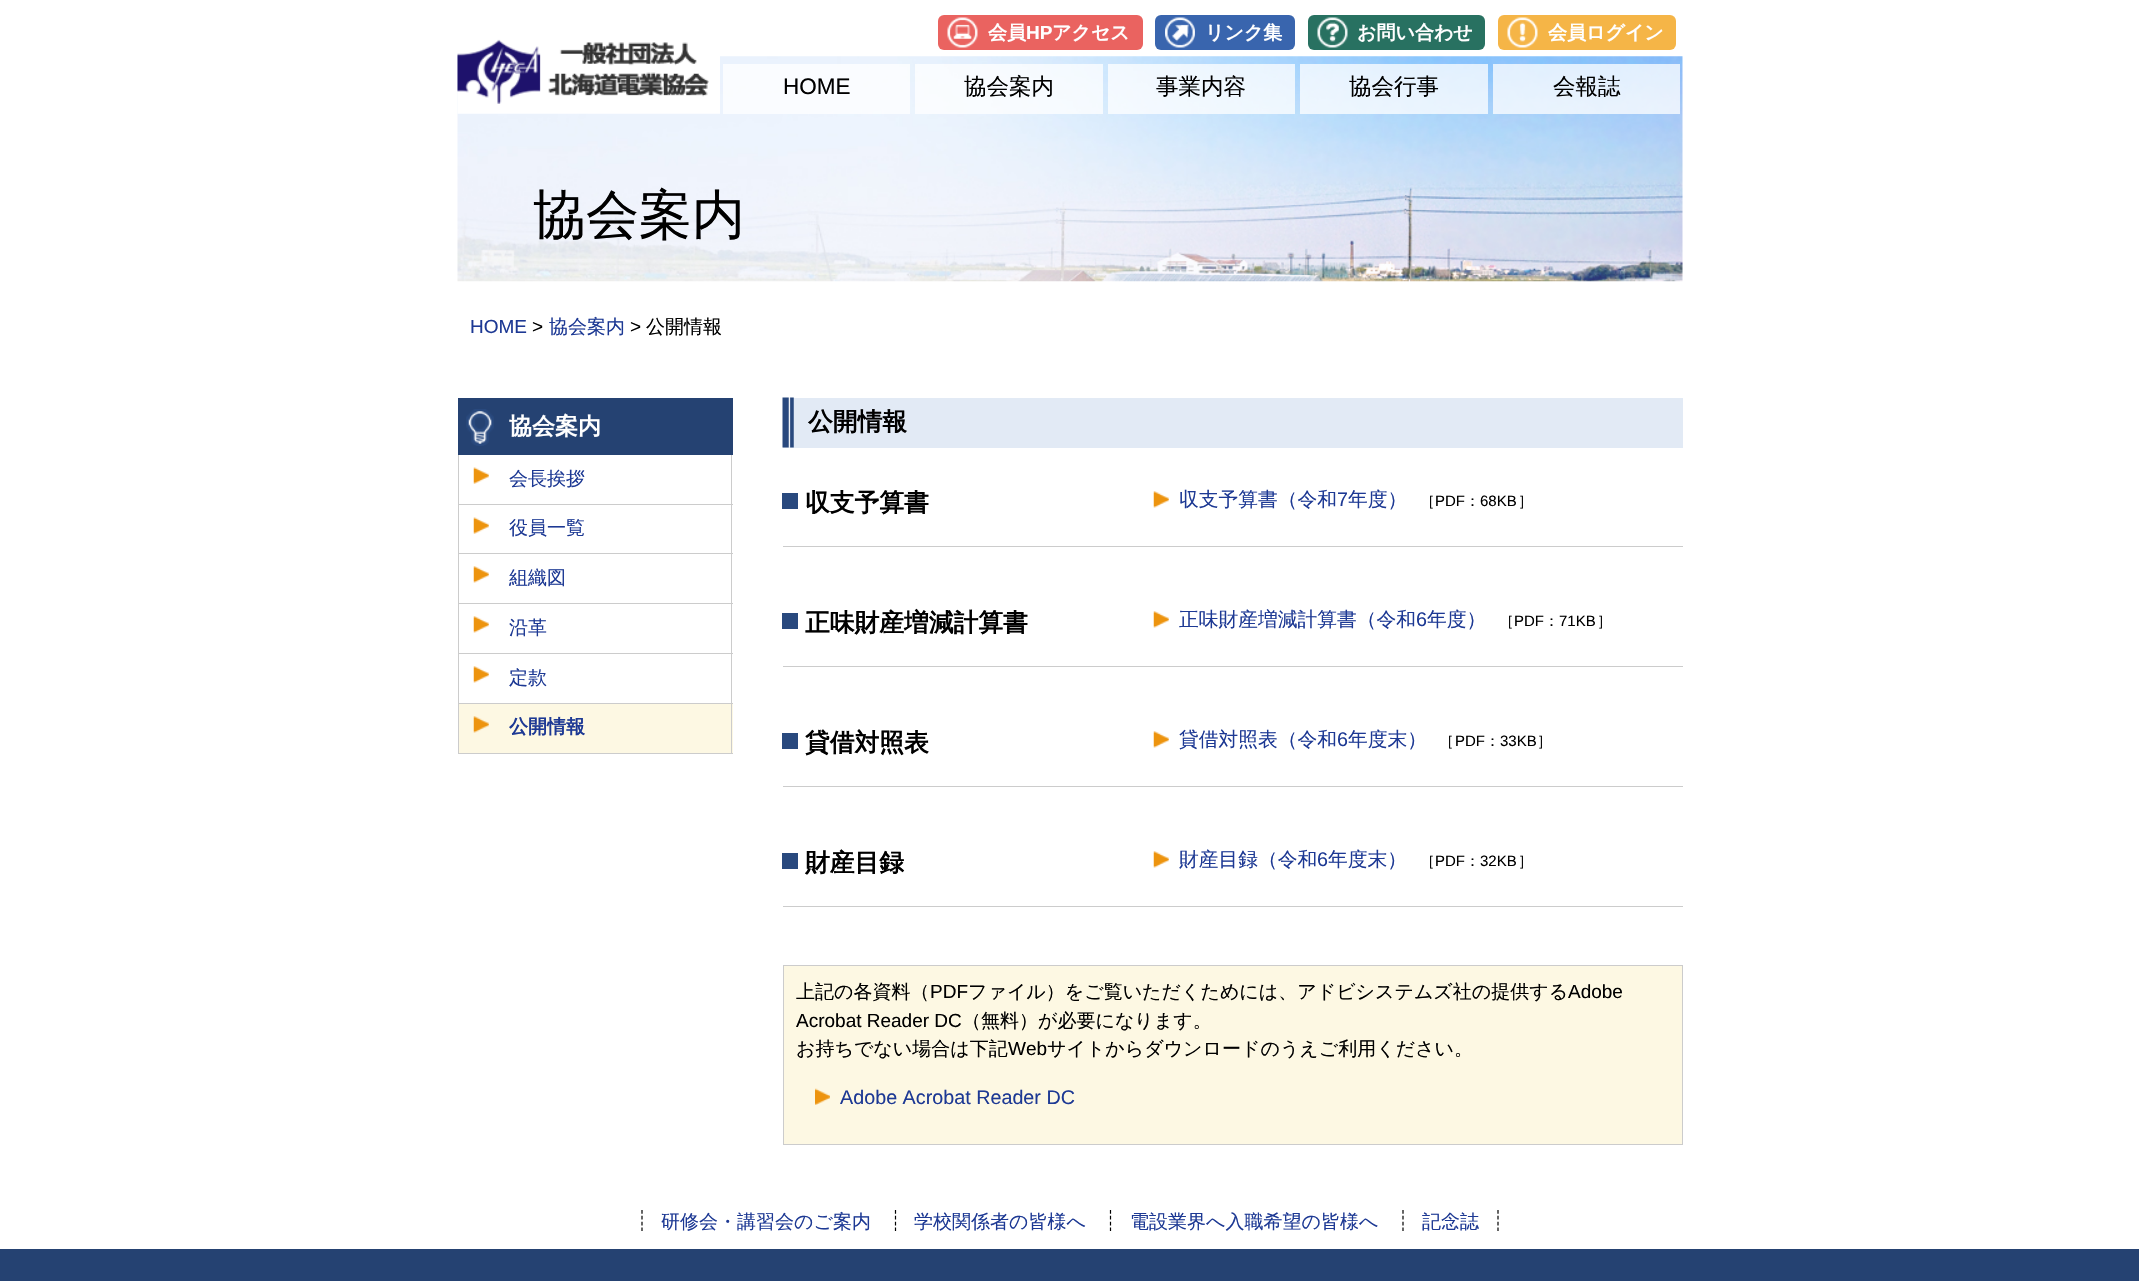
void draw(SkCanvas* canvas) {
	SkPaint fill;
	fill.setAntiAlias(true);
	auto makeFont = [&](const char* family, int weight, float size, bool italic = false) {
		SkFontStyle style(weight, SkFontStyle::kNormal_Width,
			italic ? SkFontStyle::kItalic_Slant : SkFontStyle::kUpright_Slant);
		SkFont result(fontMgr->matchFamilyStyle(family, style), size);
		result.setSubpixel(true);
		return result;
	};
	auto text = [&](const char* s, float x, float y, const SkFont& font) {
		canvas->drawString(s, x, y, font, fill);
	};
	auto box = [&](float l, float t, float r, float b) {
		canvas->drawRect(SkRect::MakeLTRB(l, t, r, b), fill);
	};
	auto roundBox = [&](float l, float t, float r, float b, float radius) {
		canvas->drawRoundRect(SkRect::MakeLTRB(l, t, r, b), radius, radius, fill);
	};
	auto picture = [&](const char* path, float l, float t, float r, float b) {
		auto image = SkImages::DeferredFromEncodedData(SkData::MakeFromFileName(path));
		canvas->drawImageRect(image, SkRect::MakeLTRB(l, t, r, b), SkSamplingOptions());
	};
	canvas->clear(0xFFFFFFFF);
	fill.setColor(0xFFEA6360);
	roundBox(938, 15, 1143, 50, 6);
	picture("image0.png", 947, 17, 978, 48);
	fill.setColor(0xFF3965AE);
	roundBox(1155, 15, 1295, 50, 6);
	picture("image1.png", 1165, 17, 1195, 48);
	fill.setColor(0xFF287161);
	roundBox(1308, 15, 1485, 50, 6);
	picture("image2.png", 1317, 17, 1348, 48);
	fill.setColor(0xFFF5B547);
	roundBox(1498, 15, 1676, 50, 6);
	picture("image3.png", 1507, 17, 1538, 48);
	picture("image5.png", 457, 56, 1683, 282);
	picture("image4.png", 457, 39, 720, 114);
	fill.setColor(0xBFFFFFFF);
	box(723, 64, 910, 114);
	box(915, 64, 1103, 114);
	box(1108, 64, 1295, 114);
	box(1300, 64, 1488, 114);
	box(1493, 64, 1680, 114);
	fill.setColor(0xFF254272);
	box(458, 398, 733, 455);
	picture("image6.png", 466, 409, 494, 446);
	fill.setColor(0xFFCCCCCC);
	box(731, 455, 732, 704);
	box(458, 504, 733, 505);
	box(458, 455, 459, 505);
	picture("image7.png", 473, 467, 489, 484);
	box(458, 553, 733, 554);
	box(458, 505, 459, 554);
	picture("image7.png", 473, 517, 489, 534);
	box(458, 603, 733, 604);
	box(458, 554, 459, 604);
	picture("image8.png", 473, 566, 489, 583);
	box(458, 653, 733, 654);
	box(458, 604, 459, 654);
	picture("image8.png", 473, 616, 489, 633);
	box(458, 703, 733, 704);
	box(458, 654, 459, 704);
	picture("image8.png", 473, 666, 489, 683);
	fill.setColor(0xFFFDF8E3);
	box(459, 704, 733, 753);
	fill.setColor(0xFFCCCCCC);
	box(731, 704, 732, 754);
	box(458, 753, 733, 754);
	box(458, 704, 459, 754);
	picture("image9.png", 473, 716, 489, 733);
	fill.setColor(0xFFE2EAF5);
	box(783, 398, 1683, 448);
	picture("image10.png", 782, 397, 794, 448);
	fill.setColor(0xFFCCCCCC);
	box(783, 546, 1683, 547);
	fill.setColor(0xFF29497E);
	box(782, 493, 798, 509);
	picture("image11.png", 1153, 491, 1169, 508);
	fill.setColor(0xFFCCCCCC);
	box(783, 666, 1683, 667);
	fill.setColor(0xFF29497E);
	box(782, 613, 798, 629);
	picture("image11.png", 1153, 611, 1169, 628);
	fill.setColor(0xFFCCCCCC);
	box(783, 786, 1683, 787);
	fill.setColor(0xFF29497E);
	box(782, 733, 798, 749);
	picture("image11.png", 1153, 731, 1169, 748);
	fill.setColor(0xFFCCCCCC);
	box(783, 906, 1683, 907);
	fill.setColor(0xFF29497E);
	box(782, 853, 798, 869);
	picture("image11.png", 1153, 851, 1169, 868);
	fill.setColor(0xFFFDF8E3);
	canvas->drawRect(SkRect::MakeLTRB(783.5f, 965.5f, 1682.5f, 1144.5f), fill);
	fill.setStyle(SkPaint::kStroke_Style);
	fill.setStrokeWidth(1);
	fill.setColor(0xFFCCCCCC);
	canvas->drawRect(SkRect::MakeLTRB(783.5f, 965.5f, 1682.5f, 1144.5f), fill);
	picture("image12.png", 815, 1088, 830, 1105);
	fill.setStrokeWidth(1.2f);
	fill.setColor(0xFF000000);
	fill.setPathEffect(SkDashPathEffect::Make({{3.75f, 2.09f}}, 0));
	canvas->drawPath(SkPathBuilder().moveTo(642, 1210).lineTo(642, 1231).detach(), fill);
	fill.setPathEffect(nullptr);
	fill.setPathEffect(SkDashPathEffect::Make({{3.75f, 2.09f}}, 0));
	canvas->drawPath(SkPathBuilder().moveTo(895.5f, 1210).lineTo(895.5f, 1231).detach(), fill);
	fill.setPathEffect(nullptr);
	fill.setPathEffect(SkDashPathEffect::Make({{3.75f, 2.09f}}, 0));
	canvas->drawPath(SkPathBuilder().moveTo(1110.5f, 1210).lineTo(1110.5f, 1231).detach(), fill);
	fill.setPathEffect(nullptr);
	fill.setPathEffect(SkDashPathEffect::Make({{3.75f, 2.09f}}, 0));
	canvas->drawPath(SkPathBuilder().moveTo(1498, 1210).lineTo(1498, 1231).detach(), fill);
	fill.setPathEffect(nullptr);
	fill.setPathEffect(SkDashPathEffect::Make({{3.75f, 2.09f}}, 0));
	canvas->drawPath(SkPathBuilder().moveTo(1403, 1210).lineTo(1403, 1231).detach(), fill);
	fill.setPathEffect(nullptr);
	fill.setStyle(SkPaint::kFill_Style);
	fill.setColor(0xFF254272);
	box(0, 1249, 2139, 1281);
	auto font1 = makeFont("WenQuanYi Zen Hei", 700, 19);
	fill.setColor(0xFFFFFFFF);
	text("会員", 988, 39, font1);
	auto font2 = makeFont("Liberation Sans", 700, 19);
	text("HP", 1026, 39, font2);
	text("アクセス", 1052, 39, font1);
	text("リンク集", 1205, 39, font1);
	text("お問い合わせ", 1357, 39, font1);
	text("会員ログイン", 1548, 39, font1);
	auto font3 = makeFont("Liberation Sans", 400, 22.5f);
	fill.setColor(0xFF000000);
	text("HOME", 783, 94, font3);
	auto font4 = makeFont("WenQuanYi Zen Hei", 500, 22.5f);
	text("協会案内", 964, 94, font4);
	text("事業内容", 1156, 94, font4);
	text("協会行事", 1349, 94, font4);
	text("会報誌", 1553, 94, font4);
	auto font5 = makeFont("WenQuanYi Zen Hei", 500, 53);
	text("協会案内", 533, 233, font5);
	auto font6 = makeFont("Liberation Sans", 400, 19);
	fill.setColor(0xFF1D3994);
	text("HOME", 470, 333, font6);
	fill.setColor(0xFF000000);
	text(">", 532, 333, font6);
	auto font7 = makeFont("WenQuanYi Zen Hei", 500, 19);
	fill.setColor(0xFF1D3994);
	text("協会案内", 549, 333, font7);
	fill.setColor(0xFF000000);
	text(">", 630, 333, font6);
	text("公開情報", 646, 333, font7);
	auto font8 = makeFont("WenQuanYi Zen Hei", 700, 23);
	fill.setColor(0xFFFFFFFF);
	text("協会案内", 509, 434, font8);
	fill.setColor(0xFF1D3994);
	text("会長挨拶", 509, 485, font7);
	text("役員一覧", 509, 534, font7);
	text("組織図", 509, 584, font7);
	text("沿革", 509, 634, font7);
	text("定款", 509, 684, font7);
	text("公開情報", 509, 733, font1);
	auto font9 = makeFont("WenQuanYi Zen Hei", 700, 24.75f);
	fill.setColor(0xFF000000);
	text("公開情報", 808, 430, font9);
	text("収支予算書", 805, 511, font9);
	auto font10 = makeFont("WenQuanYi Zen Hei", 500, 19.75f);
	fill.setColor(0xFF1D3994);
	text("収支予算書（令和", 1179, 506, font10);
	auto font11 = makeFont("Liberation Sans", 400, 19.75f);
	text("7", 1337, 506, font11);
	text("年度）", 1348, 506, font10);
	auto font12 = makeFont("WenQuanYi Zen Hei", 500, 15);
	fill.setColor(0xFF000000);
	text("［", 1420, 506, font12);
	auto font13 = makeFont("Liberation Sans", 400, 15);
	text("PDF", 1435, 506, font13);
	text("：", 1465, 506, font12);
	text("68KB", 1480, 506, font13);
	text("］", 1518, 506, font12);
	text("正味財産増減計算書", 805, 631, font9);
	fill.setColor(0xFF1D3994);
	text("正味財産増減計算書（令和", 1179, 626, font10);
	text("6", 1416, 626, font11);
	text("年度）", 1427, 626, font10);
	fill.setColor(0xFF000000);
	text("［", 1499, 626, font12);
	text("PDF", 1514, 626, font13);
	text("：", 1544, 626, font12);
	text("71KB", 1559, 626, font13);
	text("］", 1597, 626, font12);
	text("貸借対照表", 805, 751, font9);
	fill.setColor(0xFF1D3994);
	text("貸借対照表（令和", 1179, 746, font10);
	text("6", 1337, 746, font11);
	text("年度末）", 1348, 746, font10);
	fill.setColor(0xFF000000);
	text("［", 1439, 746, font12);
	text("PDF", 1455, 746, font13);
	text("：", 1485, 746, font12);
	text("33KB", 1500, 746, font13);
	text("］", 1537, 746, font12);
	text("財産目録", 805, 871, font9);
	fill.setColor(0xFF1D3994);
	text("財産目録（令和", 1179, 866, font10);
	text("6", 1317, 866, font11);
	text("年度末）", 1328, 866, font10);
	fill.setColor(0xFF000000);
	text("［", 1420, 866, font12);
	text("PDF", 1435, 866, font13);
	text("：", 1465, 866, font12);
	text("32KB", 1480, 866, font13);
	text("］", 1518, 866, font12);
	text("上記の各資料（", 796, 998, font7);
	text("PDF", 930, 998, font6);
	text("ファイル）をご覧いただくためには、アドビシステムズ社の提供する", 968, 998, font7);
	text("Adobe", 1568, 998, font6);
	text("Acrobat Reader DC", 796, 1027, font6);
	text("（無料）が必要になります。", 962, 1027, font7);
	text("お持ちでない場合は下記", 796, 1055, font7);
	text("Web", 1008, 1055, font6);
	text("サイトからダウンロードのうえご利用ください。", 1047, 1055, font7);
	fill.setColor(0xFF1D3994);
	text("Adobe Acrobat Reader DC", 840, 1104, font11);
	text("研修会・講習会のご案内", 661, 1228, font7);
	text("学校関係者の皆様へ", 914, 1228, font7);
	text("電設業界へ入職希望の皆様へ", 1130, 1228, font7);
	text("記念誌", 1422, 1228, font7);
}
